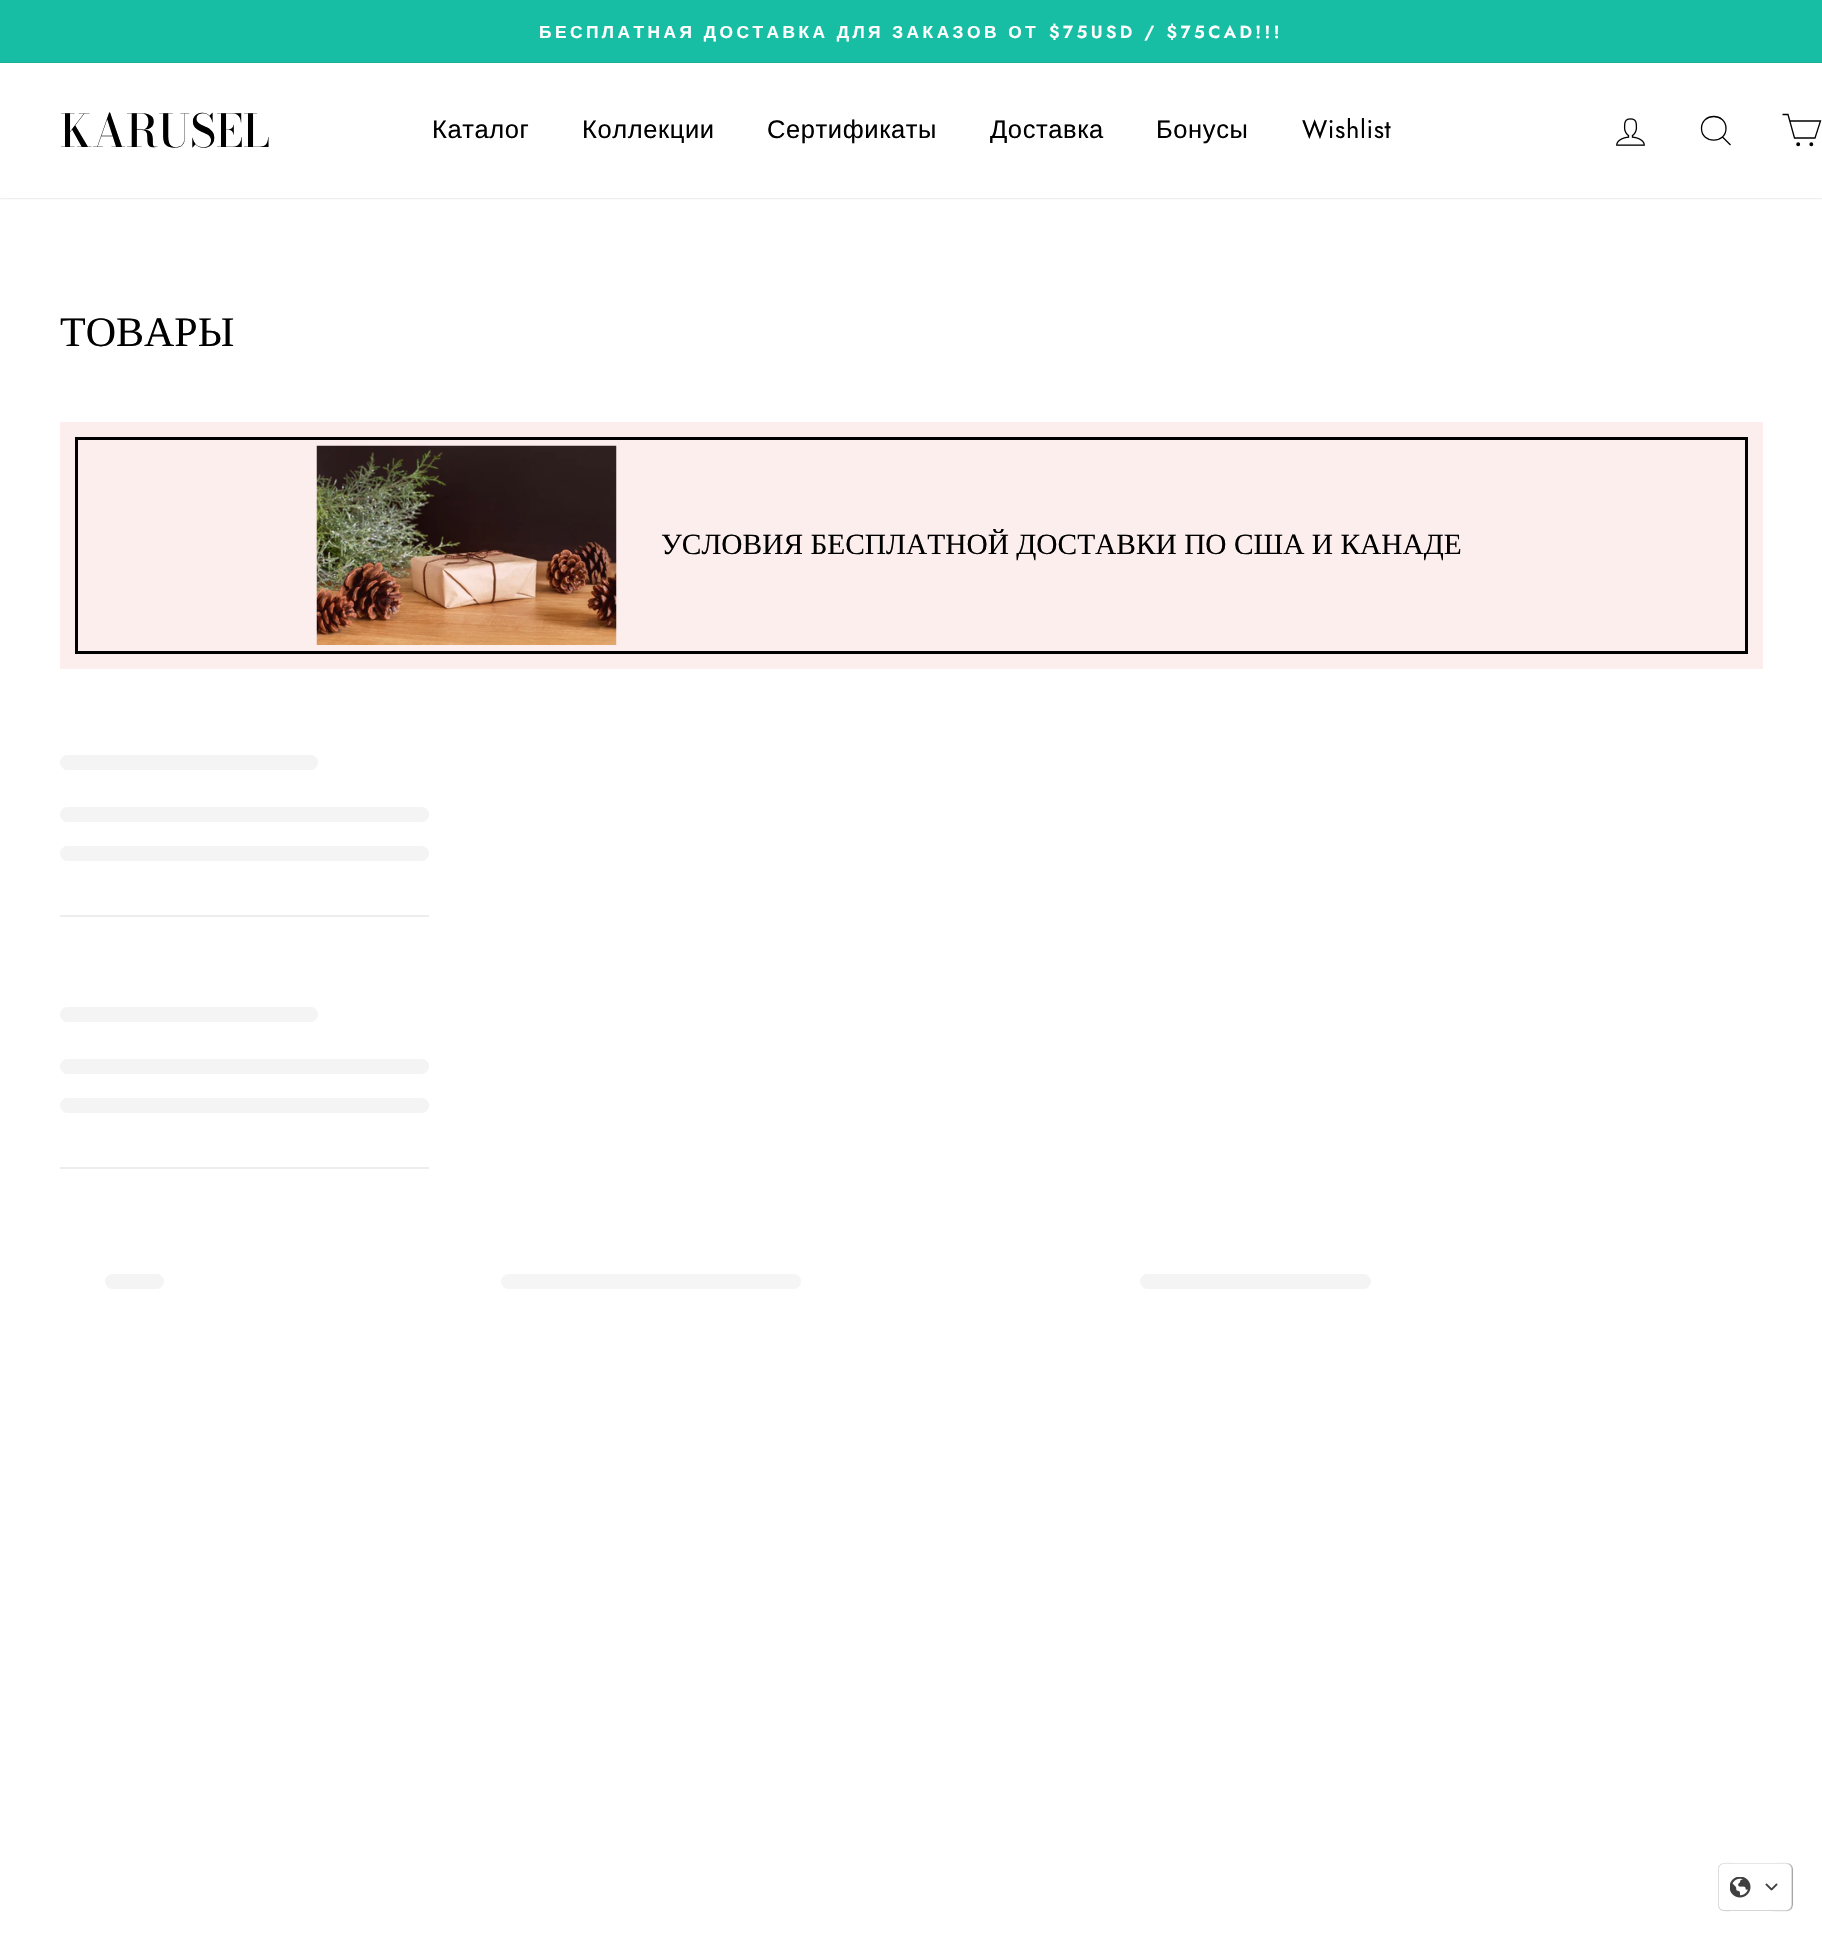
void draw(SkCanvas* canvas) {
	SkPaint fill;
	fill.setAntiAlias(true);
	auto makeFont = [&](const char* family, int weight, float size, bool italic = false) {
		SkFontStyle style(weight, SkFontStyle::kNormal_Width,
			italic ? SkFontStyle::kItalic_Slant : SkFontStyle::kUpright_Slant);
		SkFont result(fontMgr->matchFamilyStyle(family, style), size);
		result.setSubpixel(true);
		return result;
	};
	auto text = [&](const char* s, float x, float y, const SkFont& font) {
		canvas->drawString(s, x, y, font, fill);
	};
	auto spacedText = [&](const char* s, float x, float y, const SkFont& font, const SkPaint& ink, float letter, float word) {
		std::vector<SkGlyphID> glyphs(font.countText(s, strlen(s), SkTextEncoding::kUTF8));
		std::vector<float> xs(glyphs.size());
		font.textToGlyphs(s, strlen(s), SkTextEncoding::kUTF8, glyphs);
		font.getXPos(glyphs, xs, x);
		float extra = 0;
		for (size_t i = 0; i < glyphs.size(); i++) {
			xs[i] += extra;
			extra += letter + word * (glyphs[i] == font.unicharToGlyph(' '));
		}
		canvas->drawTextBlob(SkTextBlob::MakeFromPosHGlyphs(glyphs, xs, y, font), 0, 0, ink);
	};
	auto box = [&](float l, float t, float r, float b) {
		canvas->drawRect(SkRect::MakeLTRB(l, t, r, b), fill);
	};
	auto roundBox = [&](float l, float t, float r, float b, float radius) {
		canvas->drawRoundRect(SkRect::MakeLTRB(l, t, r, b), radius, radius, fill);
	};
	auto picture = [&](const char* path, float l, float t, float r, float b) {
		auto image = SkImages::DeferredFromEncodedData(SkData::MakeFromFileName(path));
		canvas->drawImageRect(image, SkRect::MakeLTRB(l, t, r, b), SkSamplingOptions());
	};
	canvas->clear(0xFFFFFFFF);
	fill.setColor(0xFFFDEEEE);
	box(60, 422, 1763, 669);
	fill.setColor(0xFF17BEA4);
	box(0, 0, 1822, 63);
	canvas->save();
	canvas->clipPath(SkPathBuilder(SkPathFillType::kEvenOdd).moveTo(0, 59).lineTo(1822, 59).lineTo(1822, 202).lineTo(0, 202).close().moveTo(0, 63).lineTo(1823, 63).lineTo(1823, 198).lineTo(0, 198).close().detach(), true);
	fill.setColor(0x33000000);
	fill.setMaskFilter(SkMaskFilter::MakeBlur(kNormal_SkBlurStyle, 1));
	canvas->drawRect(SkRect::MakeLTRB(0, 63, 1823, 198), fill);
	fill.setMaskFilter(nullptr);
	canvas->restore();
	picture("image0.png", 1616, 118, 1645, 146);
	fill.setStyle(SkPaint::kStroke_Style);
	fill.setStrokeWidth(1.3f);
	fill.setColor(0xFF000000);
	canvas->drawPath(SkPathBuilder().moveTo(1726, 128.5f).cubicTo(1726, 144, 1701.5f, 144, 1701.5f, 128.5f).cubicTo(1701.5f, 112.5f, 1726, 112.5f, 1726, 128.5f).close().moveTo(1730.5f, 145).lineTo(1722.5f, 137).detach(), fill);
	canvas->drawPath(SkPathBuilder().moveTo(1789.5f, 121).lineTo(1820.5f, 121).lineTo(1815, 138).lineTo(1794.5f, 138).lineTo(1788, 114.5f).lineTo(1782.5f, 114.5f).detach(), fill);
	fill.setStyle(SkPaint::kFill_Style);
	canvas->drawCircle(1798.2f, 144.3f, 1.3f, fill);
	fill.setStyle(SkPaint::kStroke_Style);
	canvas->drawCircle(1798.2f, 144.3f, 1.3f, fill);
	fill.setStyle(SkPaint::kFill_Style);
	canvas->drawCircle(1811.3f, 144.3f, 1.3f, fill);
	fill.setStyle(SkPaint::kStroke_Style);
	canvas->drawCircle(1811.3f, 144.3f, 1.3f, fill);
	picture("image1.png", 316, 445, 617, 645);
	fill.setStrokeWidth(3);
	canvas->drawRect(SkRect::MakeLTRB(76.5f, 438.5f, 1746.5f, 652.5f), fill);
	fill.setStyle(SkPaint::kFill_Style);
	fill.setColor(0xFFEDEDED);
	box(60, 915, 429, 917);
	fill.setColor(0xFFF4F4F4);
	roundBox(60, 755, 318, 770, 7.5f);
	roundBox(60, 807, 429, 822, 7.5f);
	roundBox(60, 846, 429, 861, 7.5f);
	fill.setColor(0xFFEDEDED);
	box(60, 1167, 429, 1169);
	fill.setColor(0xFFF4F4F4);
	roundBox(60, 1007, 318, 1022, 7.5f);
	roundBox(60, 1059, 429, 1074, 7.5f);
	roundBox(60, 1098, 429, 1113, 7.5f);
	roundBox(105, 1274, 164, 1289, 7.5f);
	fill.setColor(0xFFF5F5F5);
	roundBox(501, 1274, 801, 1289, 7.5f);
	fill.setColor(0xFFF4F4F4);
	roundBox(1140, 1274, 1371, 1289, 7.5f);
	fill.setColor(0xFFE6E6E6);
	canvas->drawPath(SkPathBuilder().moveTo(1724, 1864).lineTo(1786, 1864).cubicTo(1790, 1864, 1792, 1867, 1792, 1870).lineTo(1792, 1906).lineTo(1791, 1909).cubicTo(1794, 1906, 1793, 1902, 1793, 1899).lineTo(1793, 1887).cubicTo(1793, 1858, 1796, 1863, 1766, 1863).lineTo(1734, 1863).cubicTo(1728, 1863, 1718, 1861, 1718, 1870).cubicTo(1718, 1867, 1720, 1864, 1724, 1864).close().detach(), fill);
	fill.setColor(0x2B000000);
	canvas->drawPath(SkPathBuilder().moveTo(1718, 1904).cubicTo(1718, 1913, 1728, 1911, 1734, 1911).lineTo(1766, 1911).cubicTo(1796, 1911, 1793, 1916, 1793, 1887).lineTo(1793, 1875).cubicTo(1793, 1872, 1794, 1868, 1791, 1865).lineTo(1792, 1868).lineTo(1792, 1904).cubicTo(1792, 1907, 1790, 1910, 1786, 1910).lineTo(1724, 1910).cubicTo(1720, 1910, 1718, 1907, 1718, 1904).close().detach(), fill);
	fill.setColor(0x21000000);
	canvas->drawPath(SkPathBuilder().moveTo(1785, 1911).cubicTo(1794, 1911, 1793, 1906, 1793, 1899).lineTo(1793, 1875).cubicTo(1793, 1868, 1794, 1863, 1785, 1863).cubicTo(1788, 1863, 1791, 1866, 1791, 1869).lineTo(1791, 1905).cubicTo(1791, 1908, 1788, 1911, 1785, 1911).close().detach(), fill);
	canvas->drawPath(SkPathBuilder().moveTo(1724, 1863).cubicTo(1721, 1863, 1718, 1866, 1718, 1869).lineTo(1718, 1905).cubicTo(1718, 1908, 1721, 1911, 1724, 1911).lineTo(1725, 1911).cubicTo(1722, 1911, 1719, 1908, 1719, 1905).lineTo(1719, 1869).cubicTo(1719, 1866, 1722, 1863, 1725, 1863).close().detach(), fill);
	picture("image2.png", 1730, 1877, 1751, 1898);
	picture("image3.png", 1765, 1883, 1778, 1891);
	auto font1 = makeFont("Liberation Sans", 700, 17.35f);
	fill.setColor(0xFFFFFFFF);
	spacedText("БЕСПЛАТНАЯ ДОСТАВКА ДЛЯ ЗАКАЗОВ ОТ", 539, 38, font1, fill, 3.45f, 0);
	auto font2 = makeFont("Jost", 600, 17.35f);
	spacedText("$75USD / $75CAD!!!", 1049, 38, font2, fill, 3.45f, 0);
	auto font3 = makeFont("Bodoni Moda", 500, 45);
	fill.setColor(0xFF000000);
	text("KARUSEL", 60, 147, font3);
	auto font4 = makeFont("Liberation Sans", 400, 25.5f);
	spacedText("Каталог", 432, 138, font4, fill, 0.6f, 0);
	spacedText("Коллекции", 582, 138, font4, fill, 0.6f, 0);
	spacedText("Сертификаты", 767, 138, font4, fill, 0.6f, 0);
	spacedText("Доставка", 990, 138, font4, fill, 0.6f, 0);
	spacedText("Бонусы", 1156, 138, font4, fill, 0.6f, 0);
	auto font5 = makeFont("Jost", 400, 25.5f);
	spacedText("Wishlist", 1302, 138, font5, fill, 0.6f, 0);
	auto font6 = makeFont("Liberation Serif", 400, 42);
	text("ТОВАРЫ", 60, 346, font6);
	auto font7 = makeFont("Liberation Serif", 400, 29.4f);
	text("УСЛОВИЯ БЕСПЛАТНОЙ ДОСТАВКИ ПО США И КАНАДЕ", 661, 554, font7);
}
